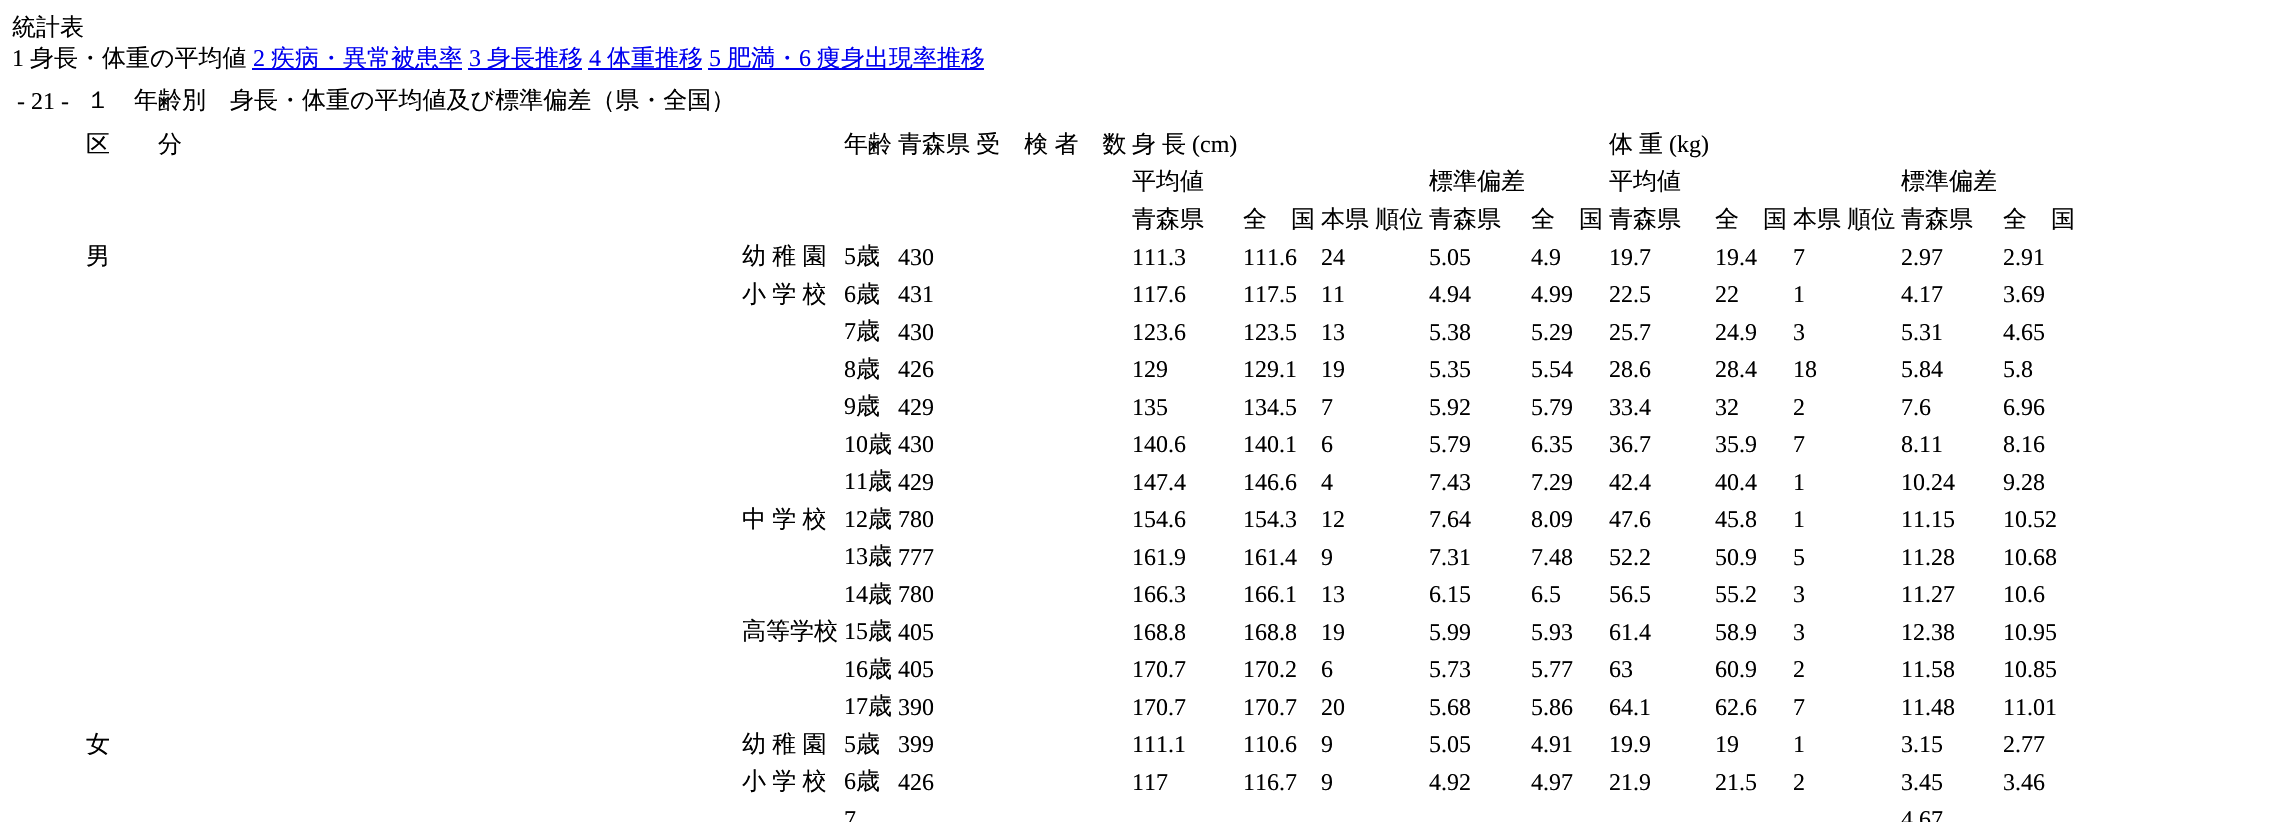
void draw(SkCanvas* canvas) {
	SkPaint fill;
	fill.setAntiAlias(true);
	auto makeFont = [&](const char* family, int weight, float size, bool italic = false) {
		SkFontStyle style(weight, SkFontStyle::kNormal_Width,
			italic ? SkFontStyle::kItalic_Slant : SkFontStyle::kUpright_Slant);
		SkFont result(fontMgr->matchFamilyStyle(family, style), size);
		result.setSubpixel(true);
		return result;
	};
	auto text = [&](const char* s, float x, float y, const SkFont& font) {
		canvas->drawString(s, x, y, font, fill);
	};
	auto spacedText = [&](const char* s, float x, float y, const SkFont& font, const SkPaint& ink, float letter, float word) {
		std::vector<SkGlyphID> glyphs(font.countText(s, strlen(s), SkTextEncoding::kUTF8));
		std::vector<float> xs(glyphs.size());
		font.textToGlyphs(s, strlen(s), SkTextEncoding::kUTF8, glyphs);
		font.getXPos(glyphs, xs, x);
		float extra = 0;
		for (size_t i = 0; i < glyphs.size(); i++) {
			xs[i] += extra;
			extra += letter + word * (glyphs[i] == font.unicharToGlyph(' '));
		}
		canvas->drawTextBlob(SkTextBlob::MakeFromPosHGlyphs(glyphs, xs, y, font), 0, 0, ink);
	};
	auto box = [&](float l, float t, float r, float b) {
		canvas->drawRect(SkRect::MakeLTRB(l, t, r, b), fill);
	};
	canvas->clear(0xFFFFFFFF);
	fill.setColor(0xFF0000EE);
	box(252, 68, 462, 70);
	box(468, 68, 582, 70);
	box(588, 68, 702, 70);
	box(708, 68, 984, 70);
	auto font1 = makeFont("WenQuanYi Zen Hei", 500, 24);
	fill.setColor(0xFF000000);
	text("統計表", 12, 35, font1);
	auto font2 = makeFont("Liberation Serif", 400, 24);
	text("1", 12, 66, font2);
	text("身長・体重の平均値", 30, 66, font1);
	fill.setColor(0xFF0000EE);
	text("2", 253, 66, font2);
	text("疾病・異常被患率", 271, 66, font1);
	text("3", 469, 66, font2);
	text("身長推移", 487, 66, font1);
	text("4", 589, 66, font2);
	text("体重推移", 607, 66, font1);
	text("5", 709, 66, font2);
	text("肥満・", 727, 66, font1);
	text("6", 799, 66, font2);
	text("痩身出現率推移", 817, 66, font1);
	fill.setColor(0xFF000000);
	text("- 21 -", 17, 109, font2);
	text("１　年齢別　身長・体重の平均値及び標準偏差（県・全国）", 86, 108, font1);
	text("区　　分", 86, 152, font1);
	text("年齢", 844, 152, font1);
	spacedText("青森県 受　検 者　数", 898, 152, font1, fill, 0, -1);
	text("身", 1132, 152, font1);
	text("長", 1162, 152, font1);
	text("(cm)", 1192, 152, font2);
	text("体", 1609, 152, font1);
	text("重", 1639, 152, font1);
	text("(kg)", 1669, 152, font2);
	text("平均値", 1132, 189, font1);
	text("標準偏差", 1429, 189, font1);
	text("平均値", 1609, 189, font1);
	text("標準偏差", 1901, 189, font1);
	text("青森県", 1132, 227, font1);
	text("全　国", 1243, 227, font1);
	spacedText("本県 順位", 1321, 227, font1, fill, 0, -1);
	text("青森県", 1429, 227, font1);
	text("全　国", 1531, 227, font1);
	text("青森県", 1609, 227, font1);
	text("全　国", 1715, 227, font1);
	spacedText("本県 順位", 1793, 227, font1, fill, 0, -1);
	text("青森県", 1901, 227, font1);
	text("全　国", 2003, 227, font1);
	text("男", 86, 264, font1);
	spacedText("幼 稚 園", 742, 264, font1, fill, 0, -1);
	text("5", 844, 264, font2);
	text("歳", 856, 264, font1);
	text("430", 898, 265, font2);
	text("111.3", 1132, 265, font2);
	text("111.6", 1243, 265, font2);
	text("24", 1321, 265, font2);
	text("5.05", 1429, 265, font2);
	text("4.9", 1531, 265, font2);
	text("19.7", 1609, 265, font2);
	text("19.4", 1715, 265, font2);
	text("7", 1793, 265, font2);
	text("2.97", 1901, 265, font2);
	text("2.91", 2003, 265, font2);
	spacedText("小 学 校", 742, 302, font1, fill, 0, -1);
	text("6", 844, 302, font2);
	text("歳", 856, 302, font1);
	text("431", 898, 302, font2);
	text("117.6", 1132, 302, font2);
	text("117.5", 1243, 302, font2);
	text("11", 1321, 302, font2);
	text("4.94", 1429, 302, font2);
	text("4.99", 1531, 302, font2);
	text("22.5", 1609, 302, font2);
	text("22", 1715, 302, font2);
	text("1", 1793, 302, font2);
	text("4.17", 1901, 302, font2);
	text("3.69", 2003, 302, font2);
	text("7", 844, 339, font2);
	text("歳", 856, 339, font1);
	text("430", 898, 340, font2);
	text("123.6", 1132, 340, font2);
	text("123.5", 1243, 340, font2);
	text("13", 1321, 340, font2);
	text("5.38", 1429, 340, font2);
	text("5.29", 1531, 340, font2);
	text("25.7", 1609, 340, font2);
	text("24.9", 1715, 340, font2);
	text("3", 1793, 340, font2);
	text("5.31", 1901, 340, font2);
	text("4.65", 2003, 340, font2);
	text("8", 844, 377, font2);
	text("歳", 856, 377, font1);
	text("426", 898, 377, font2);
	text("129", 1132, 377, font2);
	text("129.1", 1243, 377, font2);
	text("19", 1321, 377, font2);
	text("5.35", 1429, 377, font2);
	text("5.54", 1531, 377, font2);
	text("28.6", 1609, 377, font2);
	text("28.4", 1715, 377, font2);
	text("18", 1793, 377, font2);
	text("5.84", 1901, 377, font2);
	text("5.8", 2003, 377, font2);
	text("9", 844, 414, font2);
	text("歳", 856, 414, font1);
	text("429", 898, 415, font2);
	text("135", 1132, 415, font2);
	text("134.5", 1243, 415, font2);
	text("7", 1321, 415, font2);
	text("5.92", 1429, 415, font2);
	text("5.79", 1531, 415, font2);
	text("33.4", 1609, 415, font2);
	text("32", 1715, 415, font2);
	text("2", 1793, 415, font2);
	text("7.6", 1901, 415, font2);
	text("6.96", 2003, 415, font2);
	text("10", 844, 452, font2);
	text("歳", 868, 452, font1);
	text("430", 898, 452, font2);
	text("140.6", 1132, 452, font2);
	text("140.1", 1243, 452, font2);
	text("6", 1321, 452, font2);
	text("5.79", 1429, 452, font2);
	text("6.35", 1531, 452, font2);
	text("36.7", 1609, 452, font2);
	text("35.9", 1715, 452, font2);
	text("7", 1793, 452, font2);
	text("8.11", 1901, 452, font2);
	text("8.16", 2003, 452, font2);
	text("11", 844, 489, font2);
	text("歳", 868, 489, font1);
	text("429", 898, 490, font2);
	text("147.4", 1132, 490, font2);
	text("146.6", 1243, 490, font2);
	text("4", 1321, 490, font2);
	text("7.43", 1429, 490, font2);
	text("7.29", 1531, 490, font2);
	text("42.4", 1609, 490, font2);
	text("40.4", 1715, 490, font2);
	text("1", 1793, 490, font2);
	text("10.24", 1901, 490, font2);
	text("9.28", 2003, 490, font2);
	spacedText("中 学 校", 742, 527, font1, fill, 0, -1);
	text("12", 844, 527, font2);
	text("歳", 868, 527, font1);
	text("780", 898, 527, font2);
	text("154.6", 1132, 527, font2);
	text("154.3", 1243, 527, font2);
	text("12", 1321, 527, font2);
	text("7.64", 1429, 527, font2);
	text("8.09", 1531, 527, font2);
	text("47.6", 1609, 527, font2);
	text("45.8", 1715, 527, font2);
	text("1", 1793, 527, font2);
	text("11.15", 1901, 527, font2);
	text("10.52", 2003, 527, font2);
	text("13", 844, 564, font2);
	text("歳", 868, 564, font1);
	text("777", 898, 565, font2);
	text("161.9", 1132, 565, font2);
	text("161.4", 1243, 565, font2);
	text("9", 1321, 565, font2);
	text("7.31", 1429, 565, font2);
	text("7.48", 1531, 565, font2);
	text("52.2", 1609, 565, font2);
	text("50.9", 1715, 565, font2);
	text("5", 1793, 565, font2);
	text("11.28", 1901, 565, font2);
	text("10.68", 2003, 565, font2);
	text("14", 844, 602, font2);
	text("歳", 868, 602, font1);
	text("780", 898, 602, font2);
	text("166.3", 1132, 602, font2);
	text("166.1", 1243, 602, font2);
	text("13", 1321, 602, font2);
	text("6.15", 1429, 602, font2);
	text("6.5", 1531, 602, font2);
	text("56.5", 1609, 602, font2);
	text("55.2", 1715, 602, font2);
	text("3", 1793, 602, font2);
	text("11.27", 1901, 602, font2);
	text("10.6", 2003, 602, font2);
	text("高等学校", 742, 639, font1);
	text("15", 844, 639, font2);
	text("歳", 868, 639, font1);
	text("405", 898, 640, font2);
	text("168.8", 1132, 640, font2);
	text("168.8", 1243, 640, font2);
	text("19", 1321, 640, font2);
	text("5.99", 1429, 640, font2);
	text("5.93", 1531, 640, font2);
	text("61.4", 1609, 640, font2);
	text("58.9", 1715, 640, font2);
	text("3", 1793, 640, font2);
	text("12.38", 1901, 640, font2);
	text("10.95", 2003, 640, font2);
	text("16", 844, 677, font2);
	text("歳", 868, 677, font1);
	text("405", 898, 677, font2);
	text("170.7", 1132, 677, font2);
	text("170.2", 1243, 677, font2);
	text("6", 1321, 677, font2);
	text("5.73", 1429, 677, font2);
	text("5.77", 1531, 677, font2);
	text("63", 1609, 677, font2);
	text("60.9", 1715, 677, font2);
	text("2", 1793, 677, font2);
	text("11.58", 1901, 677, font2);
	text("10.85", 2003, 677, font2);
	text("17", 844, 714, font2);
	text("歳", 868, 714, font1);
	text("390", 898, 715, font2);
	text("170.7", 1132, 715, font2);
	text("170.7", 1243, 715, font2);
	text("20", 1321, 715, font2);
	text("5.68", 1429, 715, font2);
	text("5.86", 1531, 715, font2);
	text("64.1", 1609, 715, font2);
	text("62.6", 1715, 715, font2);
	text("7", 1793, 715, font2);
	text("11.48", 1901, 715, font2);
	text("11.01", 2003, 715, font2);
	text("女", 86, 752, font1);
	spacedText("幼 稚 園", 742, 752, font1, fill, 0, -1);
	text("5", 844, 752, font2);
	text("歳", 856, 752, font1);
	text("399", 898, 752, font2);
	text("111.1", 1132, 752, font2);
	text("110.6", 1243, 752, font2);
	text("9", 1321, 752, font2);
	text("5.05", 1429, 752, font2);
	text("4.91", 1531, 752, font2);
	text("19.9", 1609, 752, font2);
	text("19", 1715, 752, font2);
	text("1", 1793, 752, font2);
	text("3.15", 1901, 752, font2);
	text("2.77", 2003, 752, font2);
	spacedText("小 学 校", 742, 789, font1, fill, 0, -1);
	text("6", 844, 789, font2);
	text("歳", 856, 789, font1);
	text("426", 898, 790, font2);
	text("117", 1132, 790, font2);
	text("116.7", 1243, 790, font2);
	text("9", 1321, 790, font2);
	text("4.92", 1429, 790, font2);
	text("4.97", 1531, 790, font2);
	text("21.9", 1609, 790, font2);
	text("21.5", 1715, 790, font2);
	text("2", 1793, 790, font2);
	text("3.45", 1901, 790, font2);
	text("3.46", 2003, 790, font2);
	text("7", 844, 827, font2);
	text("4.67", 1901, 827, font2);
}
